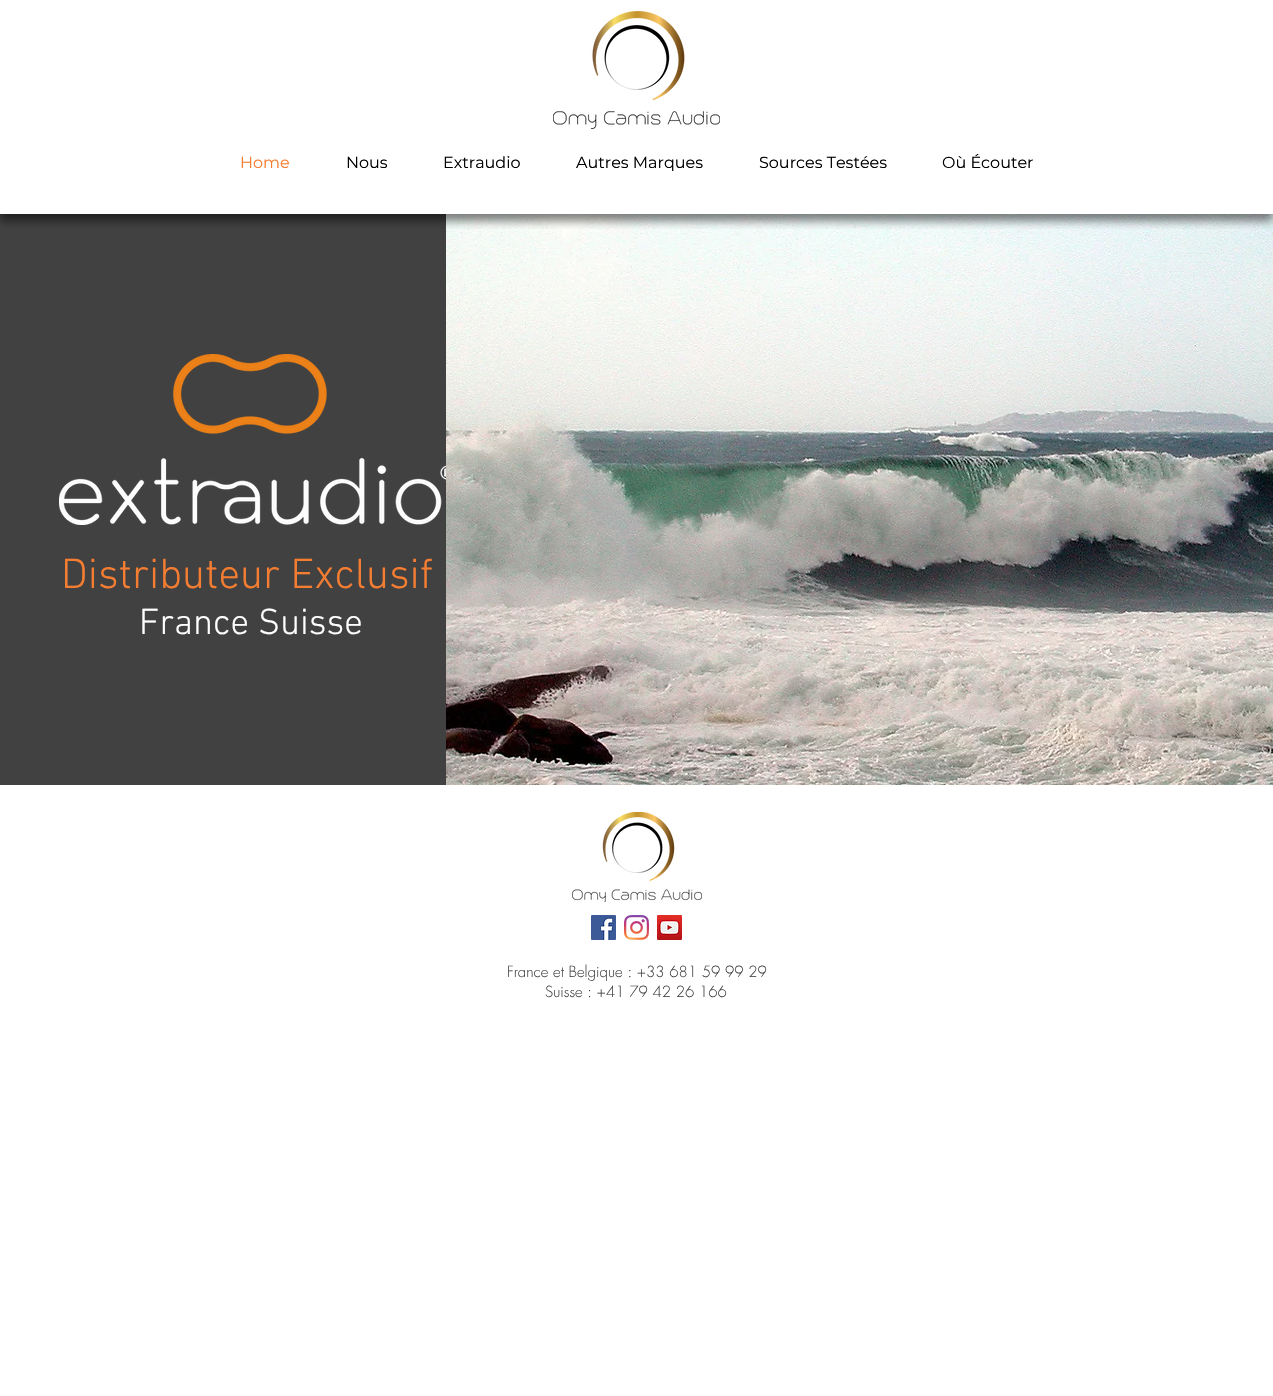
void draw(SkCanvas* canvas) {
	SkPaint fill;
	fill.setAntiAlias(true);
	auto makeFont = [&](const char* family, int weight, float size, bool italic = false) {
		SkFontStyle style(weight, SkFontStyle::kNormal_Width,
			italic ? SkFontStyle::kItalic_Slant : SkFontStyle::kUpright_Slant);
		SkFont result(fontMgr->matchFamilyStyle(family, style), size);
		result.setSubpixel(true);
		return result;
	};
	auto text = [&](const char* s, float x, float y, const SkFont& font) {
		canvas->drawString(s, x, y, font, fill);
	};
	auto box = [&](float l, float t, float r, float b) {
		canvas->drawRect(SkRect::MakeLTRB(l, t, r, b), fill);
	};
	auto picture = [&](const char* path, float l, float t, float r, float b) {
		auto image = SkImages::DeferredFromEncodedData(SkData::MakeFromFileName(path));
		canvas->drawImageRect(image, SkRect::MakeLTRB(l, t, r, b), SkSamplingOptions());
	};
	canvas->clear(0xFFFFFFFF);
	fill.setColor(0xFF414141);
	box(0, 214, 446, 785);
	picture("image2.png", 446, 214, 1273, 785);
	canvas->save();
	canvas->clipRect(SkRect::MakeLTRB(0, 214, 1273, 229));
	fill.setColor(0x80000000);
	fill.setMaskFilter(SkMaskFilter::MakeBlur(kNormal_SkBlurStyle, 4.5f));
	canvas->drawRect(SkRect::MakeLTRB(0, 7, 1273, 221), fill);
	fill.setMaskFilter(nullptr);
	canvas->restore();
	picture("image0.png", 553, 11, 720, 129);
	picture("image1.png", 59, 354, 446, 525);
	picture("image3.png", 572, 812, 702, 902);
	picture("image4.png", 591, 915, 616, 940);
	picture("image5.png", 624, 915, 649, 940);
	picture("image6.png", 657, 915, 682, 940);
	auto font1 = makeFont("Montserrat", 400, 16);
	fill.setColor(0xFFF57D32);
	text("Home", 240, 168, font1);
	fill.setColor(0xFF000000);
	text("Nous", 346, 168, font1);
	text("Extraudio", 443, 168, font1);
	text("Autres Marques", 576, 168, font1);
	text("Sources Testées", 759, 168, font1);
	text("Où Écouter", 942, 168, font1);
	auto font2 = makeFont("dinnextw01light", 300, 43);
	fill.setColor(0xFFF57D32);
	text("Distributeur Exclusif", 61, 588, font2);
	auto font3 = makeFont("dinnextw01light", 300, 37);
	fill.setColor(0xFFFFFFFF);
	text("France Suisse", 139, 634, font3);
	auto font4 = makeFont("futura", 300, 15);
	fill.setColor(0xFF414141);
	text("France et Belgique : +33 681 59 99 29", 507, 977, font4);
	text("Suisse : +41 79 42 26 166", 545, 997, font4);
}
